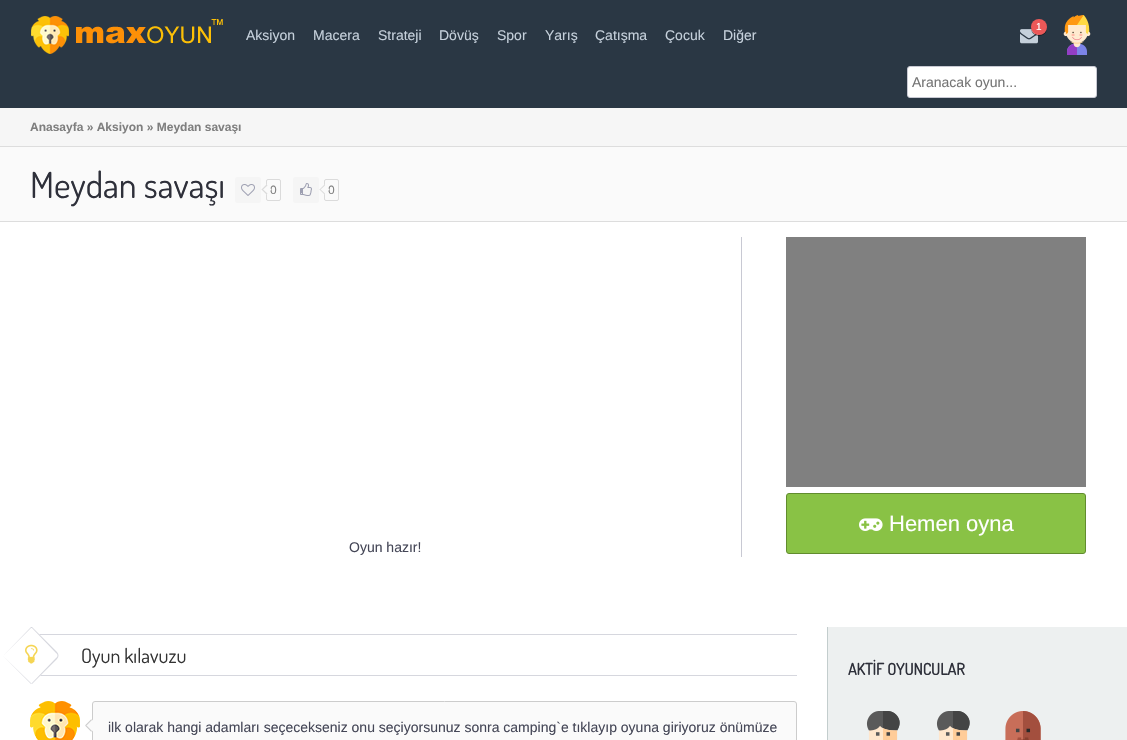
void draw(SkCanvas* canvas) {
	SkPaint fill;
	fill.setAntiAlias(true);
	auto makeFont = [&](const char* family, int weight, float size, bool italic = false) {
		SkFontStyle style(weight, SkFontStyle::kNormal_Width,
			italic ? SkFontStyle::kItalic_Slant : SkFontStyle::kUpright_Slant);
		SkFont result(fontMgr->matchFamilyStyle(family, style), size);
		result.setSubpixel(true);
		return result;
	};
	auto text = [&](const char* s, float x, float y, const SkFont& font) {
		canvas->drawString(s, x, y, font, fill);
	};
	auto box = [&](float l, float t, float r, float b) {
		canvas->drawRect(SkRect::MakeLTRB(l, t, r, b), fill);
	};
	auto roundBox = [&](float l, float t, float r, float b, float radius) {
		canvas->drawRoundRect(SkRect::MakeLTRB(l, t, r, b), radius, radius, fill);
	};
	auto picture = [&](const char* path, float l, float t, float r, float b) {
		auto image = SkImages::DeferredFromEncodedData(SkData::MakeFromFileName(path));
		canvas->drawImageRect(image, SkRect::MakeLTRB(l, t, r, b), SkSamplingOptions());
	};
	canvas->clear(0xFF2A3744);
	picture("image0.png", 31, 16, 223, 54);
	picture("image1.png", 1020, 29, 1038, 44);
	fill.setColor(0xB3000000);
	canvas->drawPath(SkPathBuilder().moveTo(1047, 27.5f).cubicTo(1046.5f, 37.5f, 1031.5f, 37.5f, 1031, 27.5f).cubicTo(1030.5f, 38.5f, 1047.5f, 38.5f, 1047, 27.5f).close().detach(), fill);
	fill.setColor(0xFFEB5858);
	canvas->drawCircle(1039, 27, 8, fill);
	picture("image2.png", 1063, 15, 1091, 55);
	fill.setColor(0xFFFFFFFF);
	canvas->drawRoundRect(SkRect::MakeLTRB(907.5f, 66.5f, 1096.5f, 97.5f), 2.5f, 2.5f, fill);
	fill.setStyle(SkPaint::kStroke_Style);
	fill.setStrokeWidth(1);
	fill.setColor(0xFFC8C9D3);
	canvas->drawRoundRect(SkRect::MakeLTRB(907.5f, 66.5f, 1096.5f, 97.5f), 2.5f, 2.5f, fill);
	fill.setStyle(SkPaint::kFill_Style);
	fill.setColor(0xFFFFFFFF);
	box(0, 222, 1127, 627);
	fill.setColor(0xFFF6F6F6);
	box(0, 108, 1127, 146);
	fill.setColor(0xFFDDDDDD);
	box(0, 146, 1127, 147);
	fill.setColor(0xFFFAFAFA);
	box(0, 147, 1127, 221);
	fill.setColor(0xFFDDDDDD);
	box(0, 221, 1127, 222);
	fill.setColor(0xFFF5F5F5);
	roundBox(235, 177, 261, 203, 3);
	picture("image3.png", 241, 184, 255, 196);
	fill.setStyle(SkPaint::kStroke_Style);
	fill.setColor(0xFFDBDBDB);
	canvas->drawRoundRect(SkRect::MakeLTRB(266.5f, 179.5f, 280.5f, 200.5f), 1.5f, 1.5f, fill);
	fill.setStyle(SkPaint::kFill_Style);
	fill.setColor(0xFFF5F5F5);
	roundBox(293, 177, 319, 203, 3);
	picture("image4.png", 300, 183, 312, 196);
	fill.setStyle(SkPaint::kStroke_Style);
	fill.setColor(0xFFDBDBDB);
	canvas->drawRoundRect(SkRect::MakeLTRB(324.5f, 179.5f, 338.5f, 200.5f), 1.5f, 1.5f, fill);
	fill.setStyle(SkPaint::kFill_Style);
	fill.setColor(0xFFC8C9D3);
	box(741, 237, 742, 557);
	fill.setColor(0xFF808080);
	box(786, 237, 1086, 487);
	fill.setColor(0xFF89C245);
	canvas->drawRoundRect(SkRect::MakeLTRB(786.5f, 493.5f, 1085.5f, 553.5f), 2.5f, 2.5f, fill);
	fill.setStyle(SkPaint::kStroke_Style);
	fill.setColor(0xFF618C2E);
	canvas->drawRoundRect(SkRect::MakeLTRB(786.5f, 493.5f, 1085.5f, 553.5f), 2.5f, 2.5f, fill);
	picture("image5.png", 859, 518, 883, 531);
	fill.setStyle(SkPaint::kFill_Style);
	fill.setColor(0xFFFFFFFF);
	box(0, 627, 827, 740);
	fill.setColor(0xFFD6D7DE);
	box(39, 634, 797, 635);
	box(40, 675, 797, 676);
	fill.setColor(0xFFFFFFFF);
	canvas->drawPath(SkPathBuilder().moveTo(32, 627).lineTo(57, 652).cubicTo(59, 654, 59, 657, 57, 659).lineTo(32, 684).lineTo(3, 656).close().detach(), fill);
	fill.setColor(0xFFD6D7DE);
	canvas->drawPath(SkPathBuilder(SkPathFillType::kEvenOdd).moveTo(32, 627).lineTo(57, 652).cubicTo(59, 654, 59, 657, 57, 659).lineTo(32, 684).lineTo(3, 656).close().moveTo(31, 627).lineTo(56, 653).cubicTo(58, 654, 58, 657, 56, 658).lineTo(31, 684).lineTo(3, 656).close().detach(), fill);
	picture("image6.png", 25, 644, 38, 664);
	picture("image7.png", 30, 701, 80, 740);
	fill.setColor(0xFFFAFAFA);
	canvas->drawRoundRect(SkRect::MakeLTRB(92.5f, 701.5f, 796.5f, 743.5f), 2.5f, 2.5f, fill);
	fill.setStyle(SkPaint::kStroke_Style);
	fill.setColor(0xFFCCCCCC);
	canvas->drawRoundRect(SkRect::MakeLTRB(92.5f, 701.5f, 796.5f, 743.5f), 2.5f, 2.5f, fill);
	fill.setStyle(SkPaint::kFill_Style);
	fill.setColor(0xFFFAFAFA);
	canvas->drawPath(SkPathBuilder().moveTo(91.5f, 719).lineTo(98, 725.5f).lineTo(91.5f, 732).lineTo(85, 725.5f).close().detach(), fill);
	fill.setColor(0xFFCCCCCC);
	canvas->drawPath(SkPathBuilder().moveTo(91.5f, 732).lineTo(85, 725.5f).lineTo(86.5f, 725.5f).lineTo(91.5f, 730.5f).close().detach(), fill);
	canvas->drawPath(SkPathBuilder().moveTo(85, 725.5f).lineTo(91.5f, 719).lineTo(91.5f, 720.5f).lineTo(86.5f, 725.5f).close().detach(), fill);
	fill.setColor(0xFFEDF0F0);
	box(828, 627, 1127, 740);
	fill.setColor(0xFFC3CDCD);
	box(827, 627, 828, 740);
	picture("image8.png", 866, 711, 900, 740);
	picture("image8.png", 936, 711, 970, 740);
	picture("image9.png", 1005, 711, 1041, 740);
	auto font1 = makeFont("Liberation Sans", 400, 14);
	fill.setColor(0xFFC5D0DB);
	text("Aksiyon", 246, 40, font1);
	text("Macera", 313, 40, font1);
	text("Strateji", 378, 40, font1);
	text("Dövüş", 439, 40, font1);
	text("Spor", 497, 40, font1);
	text("Yarış", 545, 40, font1);
	text("Çatışma", 595, 40, font1);
	text("Çocuk", 665, 40, font1);
	text("Diğer", 723, 40, font1);
	auto font2 = makeFont("Liberation Sans", 400, 10);
	fill.setColor(0xFFFFFFFF);
	text("1", 1036, 30, font2);
	fill.setColor(0xFF757575);
	text("Aranacak oyun...", 912, 87, font1);
	auto font3 = makeFont("Liberation Sans", 700, 12);
	fill.setColor(0xFF7F7F7F);
	text("Anasayfa » Aksiyon » Meydan savaşı", 30, 131, font3);
	auto font4 = makeFont("Dosis", 400, 36);
	fill.setColor(0xFF2E303A);
	text("Meydan savaşı", 30, 198, font4);
	auto font5 = makeFont("Liberation Sans", 400, 12);
	fill.setColor(0xFF7F7F7F);
	text("0", 270, 194, font5);
	fill.setColor(0xFFFAFAFA);
	canvas->drawPath(SkPathBuilder().moveTo(266.5f, 184.5f).lineTo(271.5f, 189.5f).lineTo(266.5f, 194.5f).lineTo(261.5f, 189.5f).close().detach(), fill);
	fill.setColor(0xFFDBDBDB);
	canvas->drawPath(SkPathBuilder().moveTo(262.5f, 189).lineTo(267.5f, 193.5f).lineTo(266.5f, 194.5f).lineTo(261.5f, 189.5f).close().detach(), fill);
	canvas->drawPath(SkPathBuilder().moveTo(266.5f, 184.5f).lineTo(267.5f, 185.5f).lineTo(262.5f, 190).lineTo(261.5f, 189.5f).close().detach(), fill);
	fill.setColor(0xFF7F7F7F);
	text("0", 328, 194, font5);
	fill.setColor(0xFFFAFAFA);
	canvas->drawPath(SkPathBuilder().moveTo(324.5f, 184.5f).lineTo(329.5f, 189.5f).lineTo(324.5f, 194.5f).lineTo(319.5f, 189.5f).close().detach(), fill);
	fill.setColor(0xFFDBDBDB);
	canvas->drawPath(SkPathBuilder().moveTo(320, 189).lineTo(325, 193.5f).lineTo(324.5f, 194.5f).lineTo(319.5f, 189.5f).close().detach(), fill);
	canvas->drawPath(SkPathBuilder().moveTo(324.5f, 184.5f).lineTo(325, 185.5f).lineTo(320, 190).lineTo(319.5f, 189.5f).close().detach(), fill);
	auto font6 = makeFont("Liberation Sans", 400, 22);
	fill.setColor(0xFFFFFFFF);
	text("Hemen oyna", 889, 531, font6);
	fill.setColor(0xFF454757);
	text("Oyun hazır!", 349, 552, font1);
	auto font7 = makeFont("Dosis", 400, 20);
	fill.setColor(0xFF333333);
	text("Oyun kılavuzu", 81, 663, font7);
	fill.setColor(0xFF454757);
	text("ilk olarak hangi adamları seçecekseniz onu seçiyorsunuz sonra camping`e tıklayıp oyuna giriyoruz önümüze", 108, 732, font1);
	auto font8 = makeFont("Dosis", 700, 16);
	fill.setColor(0xFF2E303A);
	text("AKTİF OYUNCULAR", 848, 675, font8);
}
